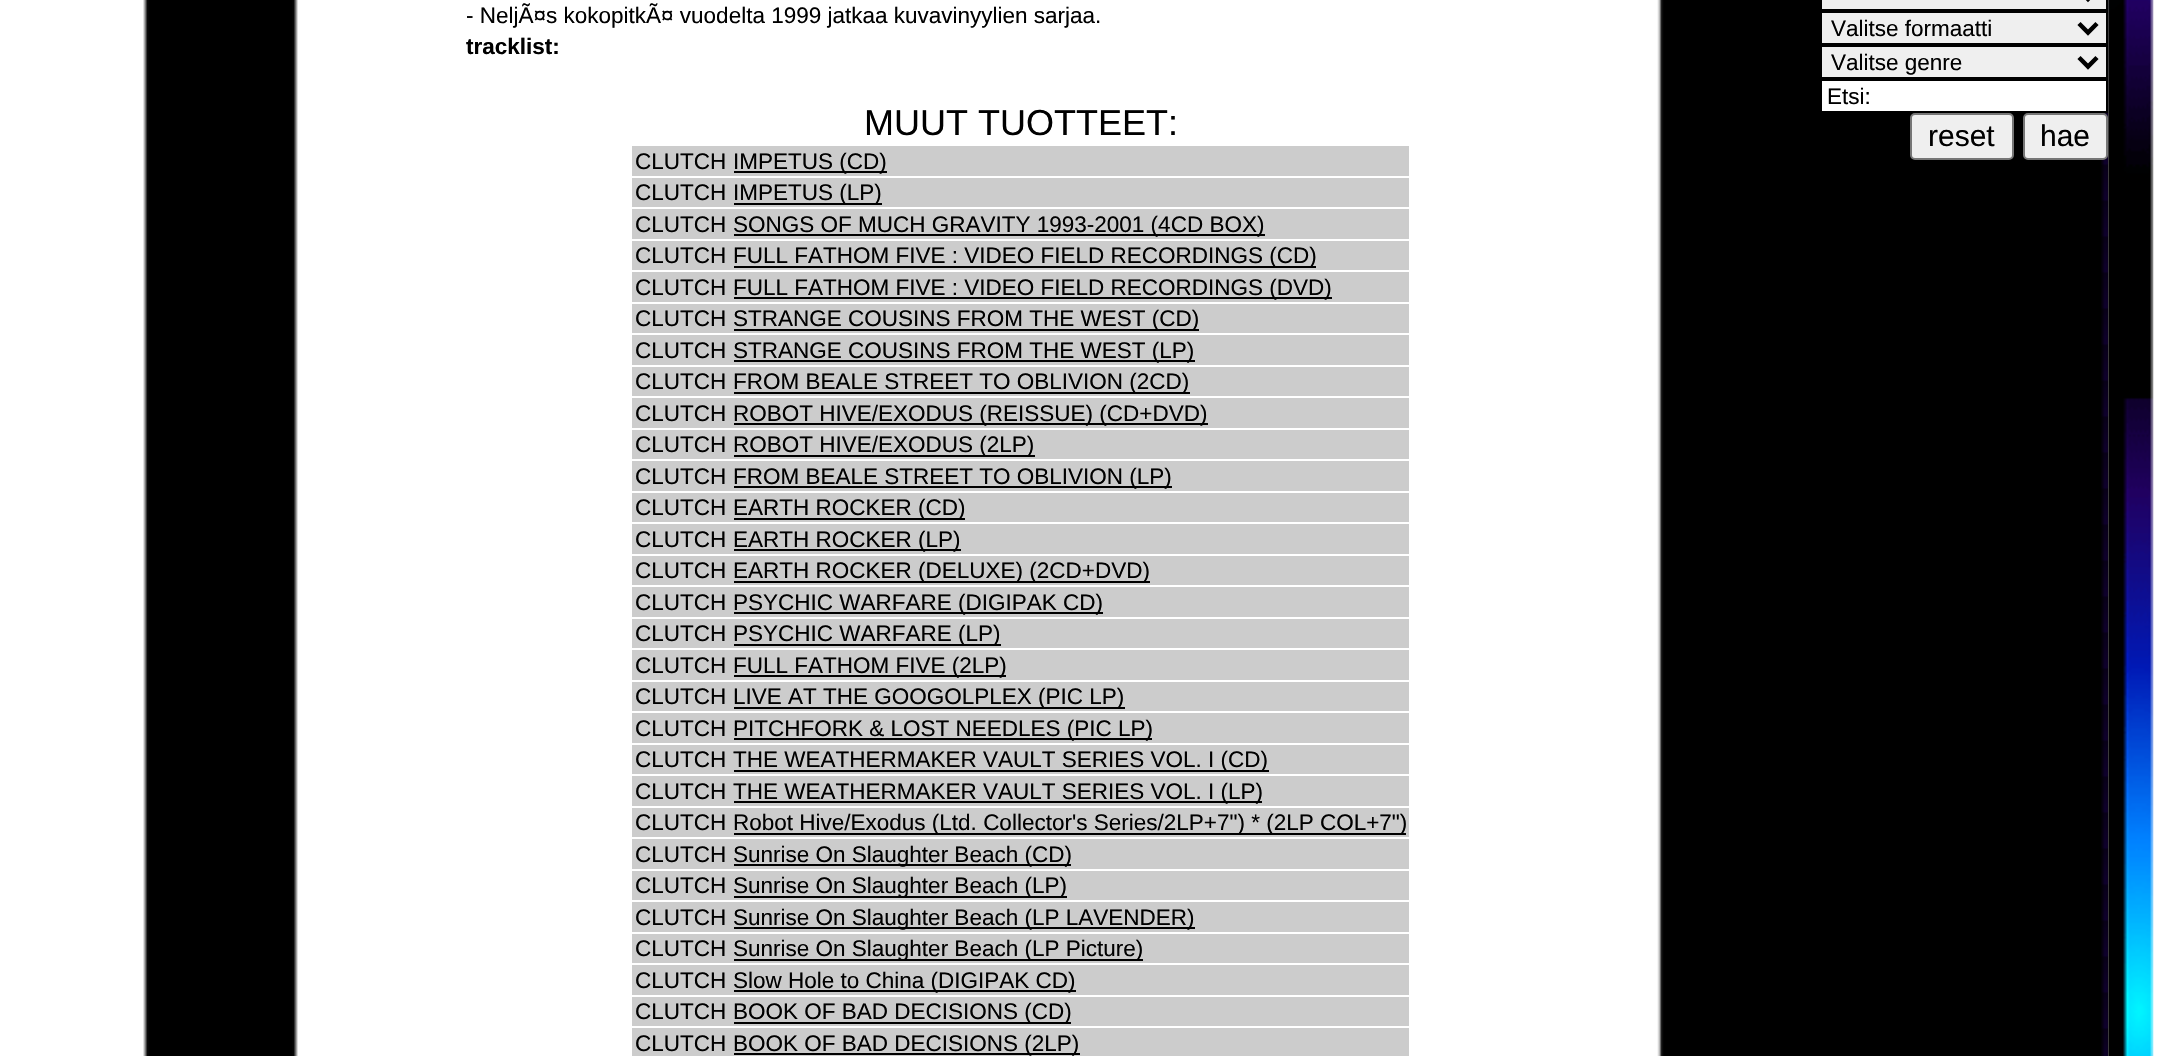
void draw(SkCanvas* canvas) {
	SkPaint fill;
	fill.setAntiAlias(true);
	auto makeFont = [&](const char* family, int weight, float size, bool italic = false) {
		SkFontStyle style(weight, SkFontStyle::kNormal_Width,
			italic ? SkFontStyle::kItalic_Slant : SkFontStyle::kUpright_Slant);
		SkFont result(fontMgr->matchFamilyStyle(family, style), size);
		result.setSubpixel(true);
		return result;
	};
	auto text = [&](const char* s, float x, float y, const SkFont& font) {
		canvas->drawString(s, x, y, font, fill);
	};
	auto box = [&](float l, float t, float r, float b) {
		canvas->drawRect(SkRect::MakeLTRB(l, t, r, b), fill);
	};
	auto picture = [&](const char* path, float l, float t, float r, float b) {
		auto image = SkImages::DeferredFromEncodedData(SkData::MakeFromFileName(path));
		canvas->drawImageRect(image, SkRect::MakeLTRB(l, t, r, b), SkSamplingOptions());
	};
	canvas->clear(0xFFFFFFFF);
	picture("image0.png", 143, 0, 298, 1056);
	fill.setColor(0xFFCCCCCC);
	box(632, 146, 1409, 176);
	fill.setColor(0xFF000000);
	box(734, 171, 887, 173);
	fill.setColor(0xFFCCCCCC);
	box(632, 178, 1409, 207);
	fill.setColor(0xFF000000);
	box(734, 203, 882, 205);
	fill.setColor(0xFFCCCCCC);
	box(632, 209, 1409, 239);
	fill.setColor(0xFF000000);
	box(734, 234, 1265, 236);
	fill.setColor(0xFFCCCCCC);
	box(632, 241, 1409, 270);
	fill.setColor(0xFF000000);
	box(734, 266, 1316, 268);
	fill.setColor(0xFFCCCCCC);
	box(632, 272, 1409, 302);
	fill.setColor(0xFF000000);
	box(734, 297, 1332, 299);
	fill.setColor(0xFFCCCCCC);
	box(632, 304, 1409, 333);
	fill.setColor(0xFF000000);
	box(734, 329, 1199, 331);
	fill.setColor(0xFFCCCCCC);
	box(632, 335, 1409, 365);
	fill.setColor(0xFF000000);
	box(734, 360, 1195, 362);
	fill.setColor(0xFFCCCCCC);
	box(632, 367, 1409, 396);
	fill.setColor(0xFF000000);
	box(734, 392, 1190, 394);
	fill.setColor(0xFFCCCCCC);
	box(632, 398, 1409, 428);
	fill.setColor(0xFF000000);
	box(734, 423, 1208, 425);
	fill.setColor(0xFFCCCCCC);
	box(632, 430, 1409, 459);
	fill.setColor(0xFF000000);
	box(734, 455, 1035, 457);
	fill.setColor(0xFFCCCCCC);
	box(632, 461, 1409, 491);
	fill.setColor(0xFF000000);
	box(734, 486, 1172, 488);
	fill.setColor(0xFFCCCCCC);
	box(632, 493, 1409, 522);
	fill.setColor(0xFF000000);
	box(734, 518, 965, 520);
	fill.setColor(0xFFCCCCCC);
	box(632, 524, 1409, 554);
	fill.setColor(0xFF000000);
	box(734, 549, 961, 551);
	fill.setColor(0xFFCCCCCC);
	box(632, 556, 1409, 585);
	fill.setColor(0xFF000000);
	box(734, 581, 1150, 583);
	fill.setColor(0xFFCCCCCC);
	box(632, 587, 1409, 617);
	fill.setColor(0xFF000000);
	box(734, 612, 1103, 614);
	fill.setColor(0xFFCCCCCC);
	box(632, 619, 1409, 648);
	fill.setColor(0xFF000000);
	box(734, 644, 1001, 646);
	fill.setColor(0xFFCCCCCC);
	box(632, 650, 1409, 680);
	fill.setColor(0xFF000000);
	box(734, 675, 1006, 677);
	fill.setColor(0xFFCCCCCC);
	box(632, 682, 1409, 711);
	fill.setColor(0xFF000000);
	box(734, 707, 1125, 709);
	fill.setColor(0xFFCCCCCC);
	box(632, 713, 1409, 743);
	fill.setColor(0xFF000000);
	box(734, 738, 1152, 740);
	fill.setColor(0xFFCCCCCC);
	box(632, 745, 1409, 774);
	fill.setColor(0xFF000000);
	box(734, 770, 1269, 772);
	fill.setColor(0xFFCCCCCC);
	box(632, 776, 1409, 806);
	fill.setColor(0xFF000000);
	box(734, 801, 1262, 803);
	fill.setColor(0xFFCCCCCC);
	box(632, 808, 1409, 837);
	fill.setColor(0xFF000000);
	box(734, 833, 1406, 835);
	fill.setColor(0xFFCCCCCC);
	box(632, 839, 1409, 869);
	fill.setColor(0xFF000000);
	box(734, 864, 1071, 866);
	fill.setColor(0xFFCCCCCC);
	box(632, 871, 1409, 900);
	fill.setColor(0xFF000000);
	box(734, 896, 1067, 898);
	fill.setColor(0xFFCCCCCC);
	box(632, 902, 1409, 932);
	fill.setColor(0xFF000000);
	box(734, 927, 1195, 929);
	fill.setColor(0xFFCCCCCC);
	box(632, 934, 1409, 963);
	fill.setColor(0xFF000000);
	box(734, 959, 1143, 961);
	fill.setColor(0xFFCCCCCC);
	box(632, 965, 1409, 995);
	fill.setColor(0xFF000000);
	box(734, 990, 1076, 992);
	fill.setColor(0xFFCCCCCC);
	box(632, 997, 1409, 1026);
	fill.setColor(0xFF000000);
	box(734, 1022, 1071, 1024);
	fill.setColor(0xFFCCCCCC);
	box(632, 1028, 1409, 1056);
	fill.setColor(0xFF000000);
	box(734, 1053, 1080, 1055);
	picture("image1.png", 1657, 0, 2109, 1056);
	fill.setColor(0xFFEFEFEF);
	canvas->drawRect(SkRect::MakeLTRB(1821, -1, 2107, 10), fill);
	fill.setStyle(SkPaint::kStroke_Style);
	fill.setStrokeWidth(2);
	fill.setColor(0xFF000000);
	canvas->drawRect(SkRect::MakeLTRB(1821, -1, 2107, 10), fill);
	fill.setStrokeWidth(4.5f);
	canvas->drawPath(SkPathBuilder().moveTo(2079, -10).lineTo(2088, -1).lineTo(2097, -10).detach(), fill);
	fill.setStyle(SkPaint::kFill_Style);
	fill.setColor(0xFFEFEFEF);
	canvas->drawRect(SkRect::MakeLTRB(1821, 12, 2107, 44), fill);
	fill.setStyle(SkPaint::kStroke_Style);
	fill.setStrokeWidth(2);
	fill.setColor(0xFF000000);
	canvas->drawRect(SkRect::MakeLTRB(1821, 12, 2107, 44), fill);
	fill.setStrokeWidth(4.5f);
	canvas->drawPath(SkPathBuilder().moveTo(2079, 23.5f).lineTo(2088, 32.5f).lineTo(2097, 23.5f).detach(), fill);
	fill.setStyle(SkPaint::kFill_Style);
	fill.setColor(0xFFEFEFEF);
	canvas->drawRect(SkRect::MakeLTRB(1821, 46, 2107, 78), fill);
	fill.setStyle(SkPaint::kStroke_Style);
	fill.setStrokeWidth(2);
	fill.setColor(0xFF000000);
	canvas->drawRect(SkRect::MakeLTRB(1821, 46, 2107, 78), fill);
	fill.setStrokeWidth(4.5f);
	canvas->drawPath(SkPathBuilder().moveTo(2079, 57.5f).lineTo(2088, 66.5f).lineTo(2097, 57.5f).detach(), fill);
	fill.setStyle(SkPaint::kFill_Style);
	fill.setColor(0xFFFFFFFF);
	canvas->drawRect(SkRect::MakeLTRB(1821, 80, 2107, 112), fill);
	fill.setStyle(SkPaint::kStroke_Style);
	fill.setStrokeWidth(2);
	fill.setColor(0xFF000000);
	canvas->drawRect(SkRect::MakeLTRB(1821, 80, 2107, 112), fill);
	fill.setStyle(SkPaint::kFill_Style);
	fill.setColor(0xFFEFEFEF);
	canvas->drawRoundRect(SkRect::MakeLTRB(1911, 114, 2013, 159), 4, 4, fill);
	fill.setStyle(SkPaint::kStroke_Style);
	fill.setColor(0xFF767676);
	canvas->drawRoundRect(SkRect::MakeLTRB(1911, 114, 2013, 159), 4, 4, fill);
	fill.setStyle(SkPaint::kFill_Style);
	fill.setColor(0xFFEFEFEF);
	canvas->drawRoundRect(SkRect::MakeLTRB(2024, 114, 2107, 159), 4, 4, fill);
	fill.setStyle(SkPaint::kStroke_Style);
	fill.setColor(0xFF767676);
	canvas->drawRoundRect(SkRect::MakeLTRB(2024, 114, 2107, 159), 4, 4, fill);
	picture("image2.png", 2108, 0, 2154, 1056);
	auto font1 = makeFont("Liberation Sans", 400, 22.5f);
	fill.setStyle(SkPaint::kFill_Style);
	fill.setColor(0xFF000000);
	text("- NeljÃ¤s kokopitkÃ¤ vuodelta 1999 jatkaa kuvavinyylien sarjaa.", 466, 23, font1);
	auto font2 = makeFont("Liberation Sans", 700, 22.5f);
	text("tracklist:", 466, 54, font2);
	auto font3 = makeFont("Liberation Sans", 400, 36);
	text("MUUT TUOTTEET:", 864, 135, font3);
	text("CLUTCH", 635, 169, font1);
	text("IMPETUS (CD)", 733, 169, font1);
	text("CLUTCH", 635, 200, font1);
	text("IMPETUS (LP)", 733, 200, font1);
	text("CLUTCH", 635, 232, font1);
	text("SONGS OF MUCH GRAVITY 1993-2001 (4CD BOX)", 733, 232, font1);
	text("CLUTCH", 635, 263, font1);
	text("FULL FATHOM FIVE : VIDEO FIELD RECORDINGS (CD)", 733, 263, font1);
	text("CLUTCH", 635, 295, font1);
	text("FULL FATHOM FIVE : VIDEO FIELD RECORDINGS (DVD)", 733, 295, font1);
	text("CLUTCH", 635, 326, font1);
	text("STRANGE COUSINS FROM THE WEST (CD)", 733, 326, font1);
	text("CLUTCH", 635, 358, font1);
	text("STRANGE COUSINS FROM THE WEST (LP)", 733, 358, font1);
	text("CLUTCH", 635, 389, font1);
	text("FROM BEALE STREET TO OBLIVION (2CD)", 733, 389, font1);
	text("CLUTCH", 635, 421, font1);
	text("ROBOT HIVE/EXODUS (REISSUE) (CD+DVD)", 733, 421, font1);
	text("CLUTCH", 635, 452, font1);
	text("ROBOT HIVE/EXODUS (2LP)", 733, 452, font1);
	text("CLUTCH", 635, 484, font1);
	text("FROM BEALE STREET TO OBLIVION (LP)", 733, 484, font1);
	text("CLUTCH", 635, 515, font1);
	text("EARTH ROCKER (CD)", 733, 515, font1);
	text("CLUTCH", 635, 547, font1);
	text("EARTH ROCKER (LP)", 733, 547, font1);
	text("CLUTCH", 635, 578, font1);
	text("EARTH ROCKER (DELUXE) (2CD+DVD)", 733, 578, font1);
	text("CLUTCH", 635, 610, font1);
	text("PSYCHIC WARFARE (DIGIPAK CD)", 733, 610, font1);
	text("CLUTCH", 635, 641, font1);
	text("PSYCHIC WARFARE (LP)", 733, 641, font1);
	text("CLUTCH", 635, 673, font1);
	text("FULL FATHOM FIVE (2LP)", 733, 673, font1);
	text("CLUTCH", 635, 704, font1);
	text("LIVE AT THE GOOGOLPLEX (PIC LP)", 733, 704, font1);
	text("CLUTCH", 635, 736, font1);
	text("PITCHFORK & LOST NEEDLES (PIC LP)", 733, 736, font1);
	text("CLUTCH", 635, 767, font1);
	text("THE WEATHERMAKER VAULT SERIES VOL. I (CD)", 733, 767, font1);
	text("CLUTCH", 635, 799, font1);
	text("THE WEATHERMAKER VAULT SERIES VOL. I (LP)", 733, 799, font1);
	text("CLUTCH", 635, 830, font1);
	text("Robot Hive/Exodus (Ltd. Collector's Series/2LP+7\") * (2LP COL+7\")", 733, 830, font1);
	text("CLUTCH", 635, 862, font1);
	text("Sunrise On Slaughter Beach (CD)", 733, 862, font1);
	text("CLUTCH", 635, 893, font1);
	text("Sunrise On Slaughter Beach (LP)", 733, 893, font1);
	text("CLUTCH", 635, 925, font1);
	text("Sunrise On Slaughter Beach (LP LAVENDER)", 733, 925, font1);
	text("CLUTCH", 635, 956, font1);
	text("Sunrise On Slaughter Beach (LP Picture)", 733, 956, font1);
	text("CLUTCH", 635, 988, font1);
	text("Slow Hole to China (DIGIPAK CD)", 733, 988, font1);
	text("CLUTCH", 635, 1019, font1);
	text("BOOK OF BAD DECISIONS (CD)", 733, 1019, font1);
	text("CLUTCH", 635, 1051, font1);
	text("BOOK OF BAD DECISIONS (2LP)", 733, 1051, font1);
	text("Valitse formaatti", 1831, 36, font1);
	text("Valitse genre", 1831, 70, font1);
	text("Etsi:", 1827, 104, font1);
	auto font4 = makeFont("Liberation Sans", 400, 30);
	text("reset", 1928, 146, font4);
	text("hae", 2040, 146, font4);
}
